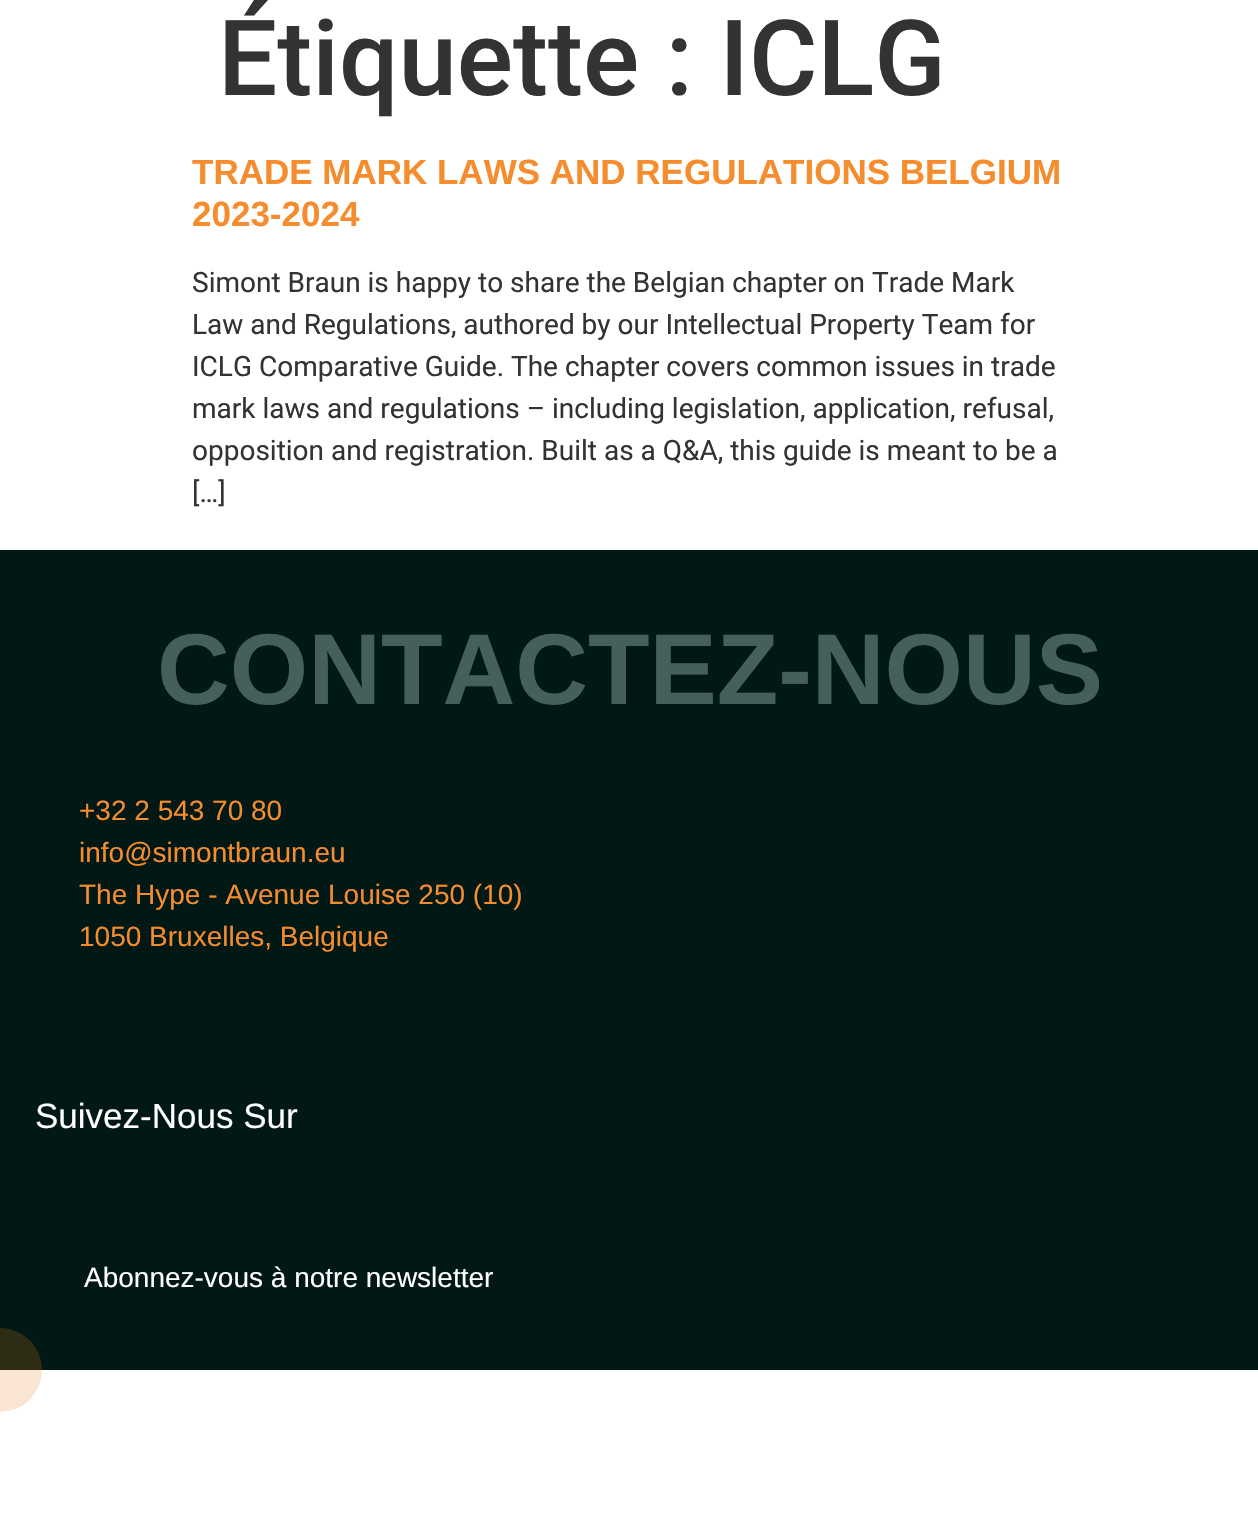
void draw(SkCanvas* canvas) {
	SkPaint fill;
	fill.setAntiAlias(true);
	auto makeFont = [&](const char* family, int weight, float size, bool italic = false) {
		SkFontStyle style(weight, SkFontStyle::kNormal_Width,
			italic ? SkFontStyle::kItalic_Slant : SkFontStyle::kUpright_Slant);
		SkFont result(fontMgr->matchFamilyStyle(family, style), size);
		result.setSubpixel(true);
		return result;
	};
	auto text = [&](const char* s, float x, float y, const SkFont& font) {
		canvas->drawString(s, x, y, font, fill);
	};
	auto box = [&](float l, float t, float r, float b) {
		canvas->drawRect(SkRect::MakeLTRB(l, t, r, b), fill);
	};
	canvas->clear(0xFFFFFFFF);
	fill.setColor(0xFF011814);
	box(0, 550, 1258, 1370);
	fill.setColor(0x33E5781F);
	canvas->drawCircle(0, 1370, 42, fill);
	auto font1 = makeFont("Roboto", 500, 105);
	fill.setColor(0xFF333333);
	text("Étiquette : ICLG", 218, 95, font1);
	auto font2 = makeFont("Liberation Sans", 700, 35);
	fill.setColor(0xFFF58C2E);
	text("TRADE MARK LAWS AND REGULATIONS BELGIUM", 192, 184, font2);
	text("2023-2024", 192, 226, font2);
	auto font3 = makeFont("Roboto", 400, 28);
	fill.setColor(0xFF333333);
	text("Simont Braun is happy to share the Belgian chapter on Trade Mark", 192, 292, font3);
	text("Law and Regulations, authored by our Intellectual Property Team for", 192, 334, font3);
	text("ICLG Comparative Guide. The chapter covers common issues in trade", 192, 376, font3);
	text("mark laws and regulations – including legislation, application, refusal,", 192, 418, font3);
	text("opposition and registration. Built as a Q&A, this guide is meant to be a", 192, 460, font3);
	text("[…]", 192, 502, font3);
	auto font4 = makeFont("Liberation Sans", 700, 100.75f);
	fill.setColor(0xFF45605B);
	text("CONTACTEZ-NOUS", 157, 704, font4);
	auto font5 = makeFont("Liberation Sans", 400, 28);
	fill.setColor(0xFFF58C2E);
	text("+32 2 543 70 80", 79, 820, font5);
	text("info@simontbraun.eu", 79, 862, font5);
	text("The Hype - Avenue Louise 250 (10)", 79, 904, font5);
	text("1050 Bruxelles, Belgique", 79, 946, font5);
	auto font6 = makeFont("Liberation Sans", 400, 35);
	fill.setColor(0xFFFFFFFF);
	text("Suivez-Nous Sur", 35, 1128, font6);
	text("Abonnez-vous à notre newsletter", 84, 1287, font5);
}
